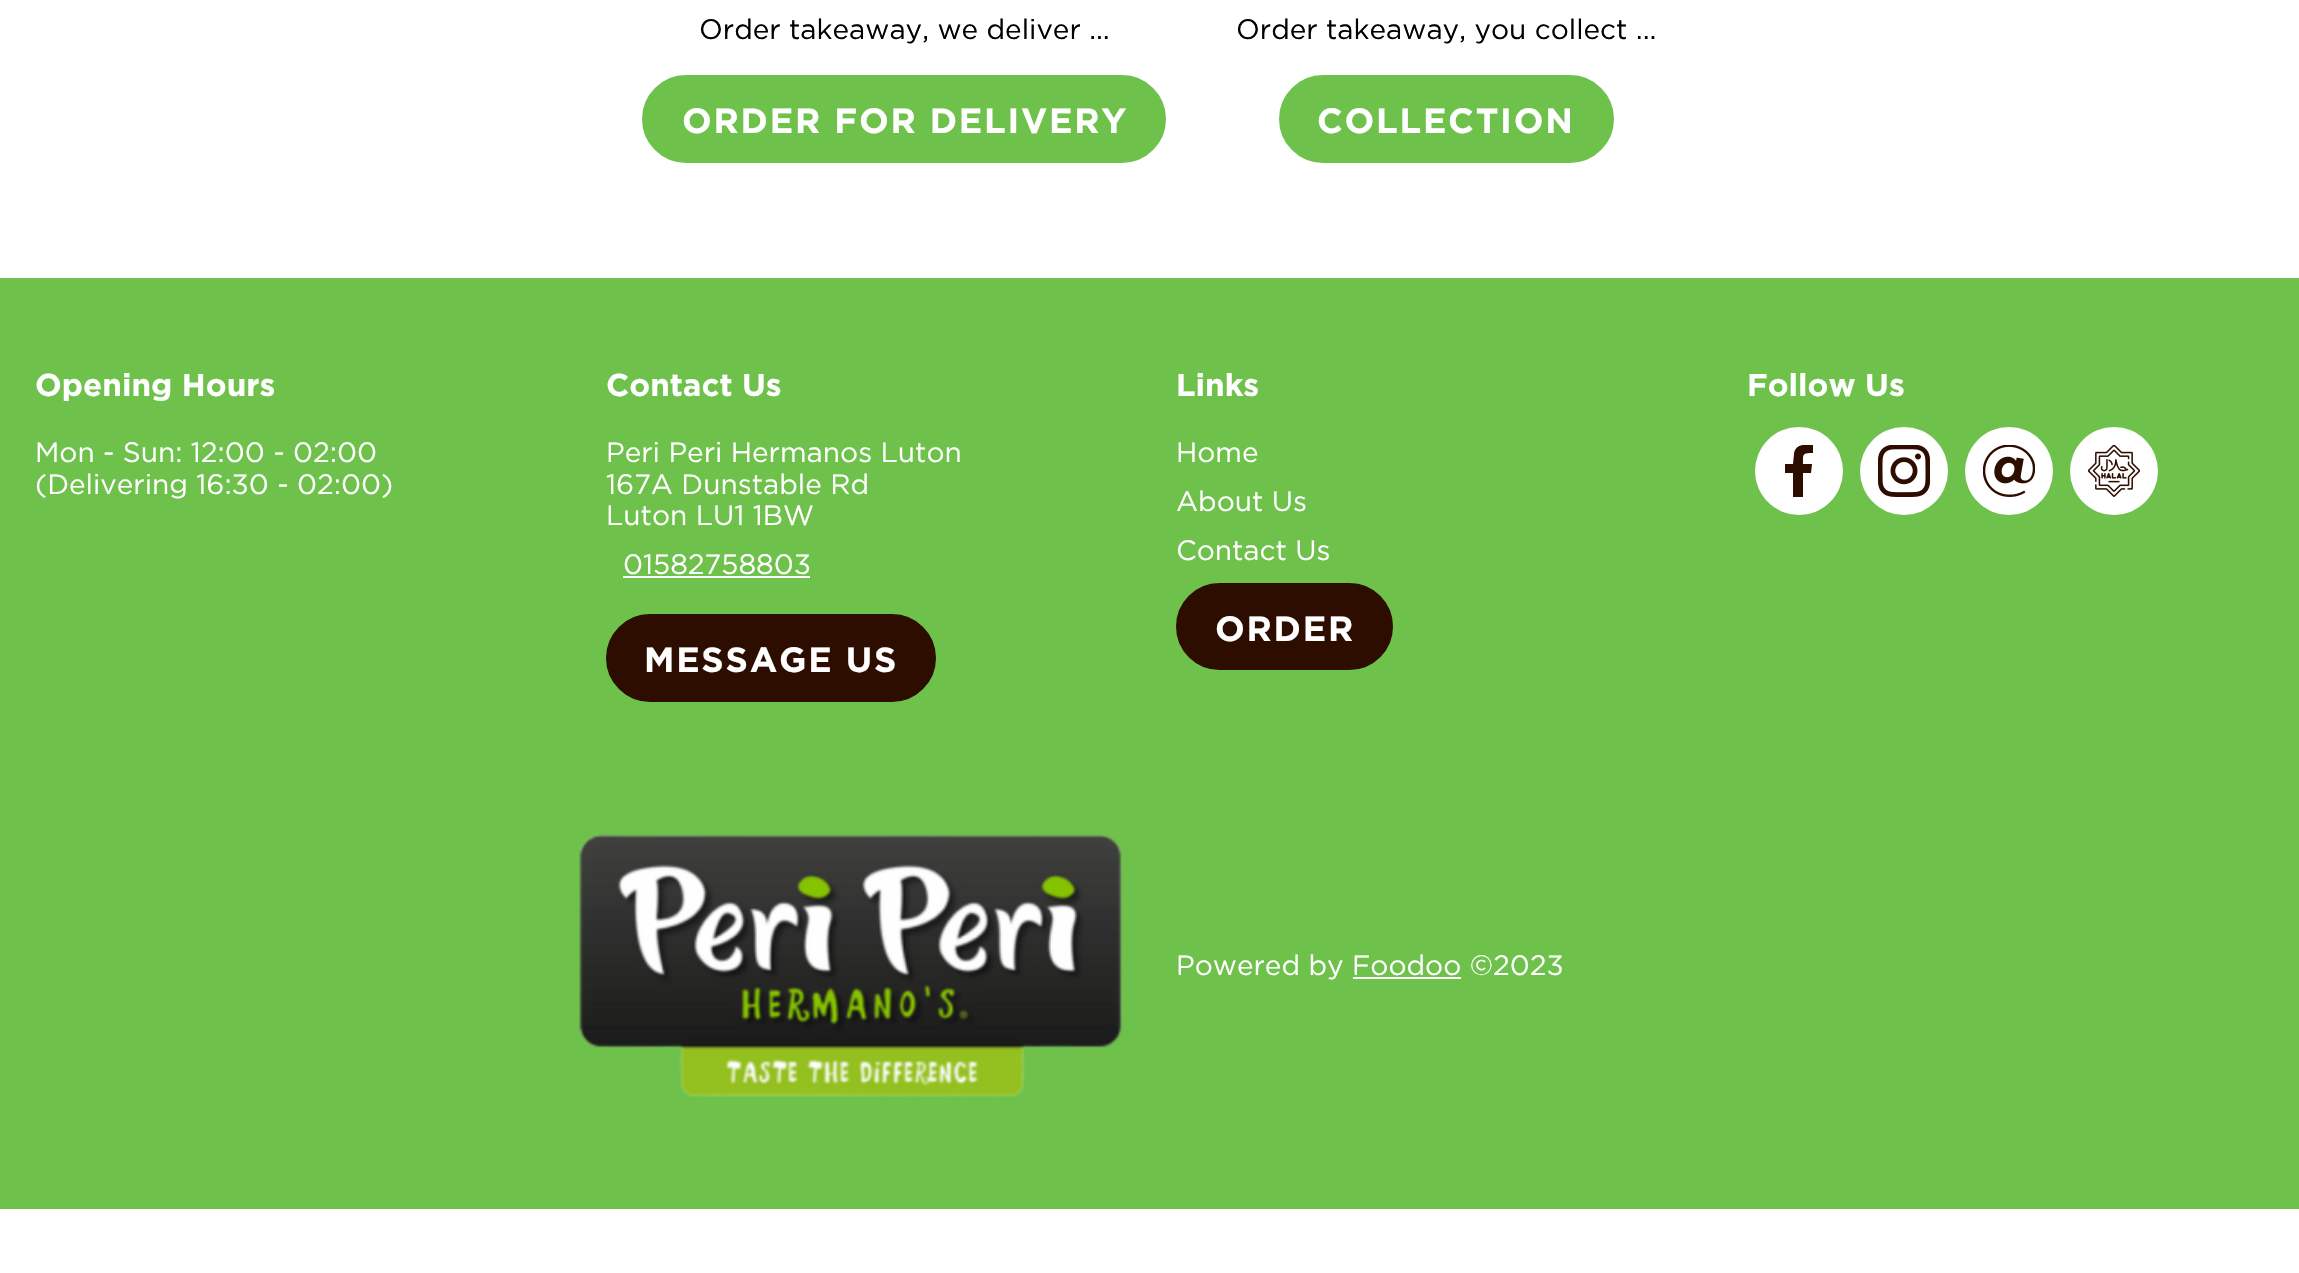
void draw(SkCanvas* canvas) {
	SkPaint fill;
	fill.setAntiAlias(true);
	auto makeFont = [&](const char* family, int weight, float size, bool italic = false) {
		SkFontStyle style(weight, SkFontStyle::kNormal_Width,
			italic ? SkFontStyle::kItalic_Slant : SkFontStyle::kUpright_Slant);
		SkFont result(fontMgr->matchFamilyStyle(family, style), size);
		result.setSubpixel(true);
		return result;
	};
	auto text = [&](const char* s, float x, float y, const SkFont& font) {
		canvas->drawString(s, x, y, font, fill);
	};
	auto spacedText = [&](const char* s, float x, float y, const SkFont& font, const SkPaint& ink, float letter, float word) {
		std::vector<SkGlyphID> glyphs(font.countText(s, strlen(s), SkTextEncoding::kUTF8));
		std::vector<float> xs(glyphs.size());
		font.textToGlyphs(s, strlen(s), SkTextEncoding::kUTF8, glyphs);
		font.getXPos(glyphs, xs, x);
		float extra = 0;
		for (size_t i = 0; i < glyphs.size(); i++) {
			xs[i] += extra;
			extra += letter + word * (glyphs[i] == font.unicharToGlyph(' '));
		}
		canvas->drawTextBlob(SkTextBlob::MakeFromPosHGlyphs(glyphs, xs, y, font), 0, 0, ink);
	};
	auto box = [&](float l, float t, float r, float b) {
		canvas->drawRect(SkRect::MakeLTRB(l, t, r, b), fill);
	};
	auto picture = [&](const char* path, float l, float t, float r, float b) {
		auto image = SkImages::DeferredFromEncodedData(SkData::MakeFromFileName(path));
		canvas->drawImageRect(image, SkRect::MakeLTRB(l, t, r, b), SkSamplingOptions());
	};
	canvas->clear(0xFFFFFFFF);
	fill.setColor(0xFF6EC14A);
	canvas->drawRoundRect(SkRect::MakeLTRB(644, 77, 1164, 161), 42, 42, fill);
	fill.setStyle(SkPaint::kStroke_Style);
	fill.setStrokeWidth(4);
	canvas->drawRoundRect(SkRect::MakeLTRB(644, 77, 1164, 161), 42, 42, fill);
	fill.setStyle(SkPaint::kFill_Style);
	canvas->drawRoundRect(SkRect::MakeLTRB(1281, 77, 1612, 161), 42, 42, fill);
	fill.setStyle(SkPaint::kStroke_Style);
	canvas->drawRoundRect(SkRect::MakeLTRB(1281, 77, 1612, 161), 42, 42, fill);
	fill.setStyle(SkPaint::kFill_Style);
	box(0, 278, 2299, 1209);
	fill.setColor(0xFFFFFFFF);
	box(623, 576, 810, 578);
	fill.setColor(0xFF2D0D00);
	canvas->drawRoundRect(SkRect::MakeLTRB(608, 616, 934, 700), 42, 42, fill);
	fill.setStyle(SkPaint::kStroke_Style);
	canvas->drawRoundRect(SkRect::MakeLTRB(608, 616, 934, 700), 42, 42, fill);
	fill.setStyle(SkPaint::kFill_Style);
	canvas->drawRoundRect(SkRect::MakeLTRB(1178, 585, 1391, 668), 41.5f, 41.5f, fill);
	fill.setStyle(SkPaint::kStroke_Style);
	canvas->drawRoundRect(SkRect::MakeLTRB(1178, 585, 1391, 668), 41.5f, 41.5f, fill);
	fill.setStyle(SkPaint::kFill_Style);
	fill.setColor(0xFFFFFFFF);
	canvas->drawCircle(1799, 471, 44, fill);
	canvas->save();
	canvas->clipRect(SkRect::MakeLTRB(1773, 445, 1825, 497));
	fill.setColor(0xFF2D0D00);
	canvas->drawPath(SkPathBuilder().moveTo(1803, 497).lineTo(1803, 473).lineTo(1811, 473).lineTo(1812, 464).lineTo(1803, 464).cubicTo(1803, 454, 1802, 453, 1813, 453).lineTo(1813, 445).cubicTo(1805, 444, 1795, 444, 1794, 454).lineTo(1793, 464).lineTo(1785, 464).lineTo(1785, 473).lineTo(1793, 473).lineTo(1793, 497).close().detach(), fill);
	canvas->restore();
	fill.setColor(0xFFFFFFFF);
	canvas->drawCircle(1904, 471, 44, fill);
	picture("image0.png", 1878, 445, 1930, 497);
	canvas->drawCircle(2009, 471, 44, fill);
	picture("image1.png", 1983, 445, 2035, 497);
	canvas->drawCircle(2114, 471, 44, fill);
	picture("image2.png", 2088, 445, 2140, 497);
	picture("image3.png", 579, 834, 1123, 1097);
	box(1353, 977, 1461, 979);
	auto font1 = makeFont("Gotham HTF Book", 400, 28);
	fill.setColor(0xFF000000);
	text("Order takeaway, we deliver ...", 699, 39, font1);
	auto font2 = makeFont("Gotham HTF", 700, 35);
	fill.setColor(0xFFFFFFFF);
	spacedText("ORDER FOR DELIVERY", 682, 133, font2, fill, 1.75f, 0);
	fill.setColor(0xFF000000);
	text("Order takeaway, you collect ...", 1236, 39, font1);
	fill.setColor(0xFFFFFFFF);
	spacedText("COLLECTION", 1317, 133, font2, fill, 1.75f, 0);
	auto font3 = makeFont("Gotham HTF", 700, 31.5f);
	text("Opening Hours", 35, 396, font3);
	text("Mon - Sun: 12:00 - 02:00", 35, 462, font1);
	text("(Delivering 16:30 - 02:00)", 35, 494, font1);
	text("Contact Us", 606, 396, font3);
	text("Peri Peri Hermanos Luton", 606, 462, font1);
	text("167A Dunstable Rd", 606, 494, font1);
	text("Luton LU1 1BW", 606, 525, font1);
	text("01582758803", 623, 574, font1);
	spacedText("MESSAGE US", 644, 672, font2, fill, 1.75f, 0);
	text("Links", 1176, 396, font3);
	text("Home", 1176, 462, font1);
	text("About Us", 1176, 511, font1);
	text("Contact Us", 1176, 560, font1);
	spacedText("ORDER", 1215, 641, font2, fill, 1.75f, 0);
	text("Follow Us", 1747, 396, font3);
	text("Powered by Foodoo ©2023", 1176, 975, font1);
}
